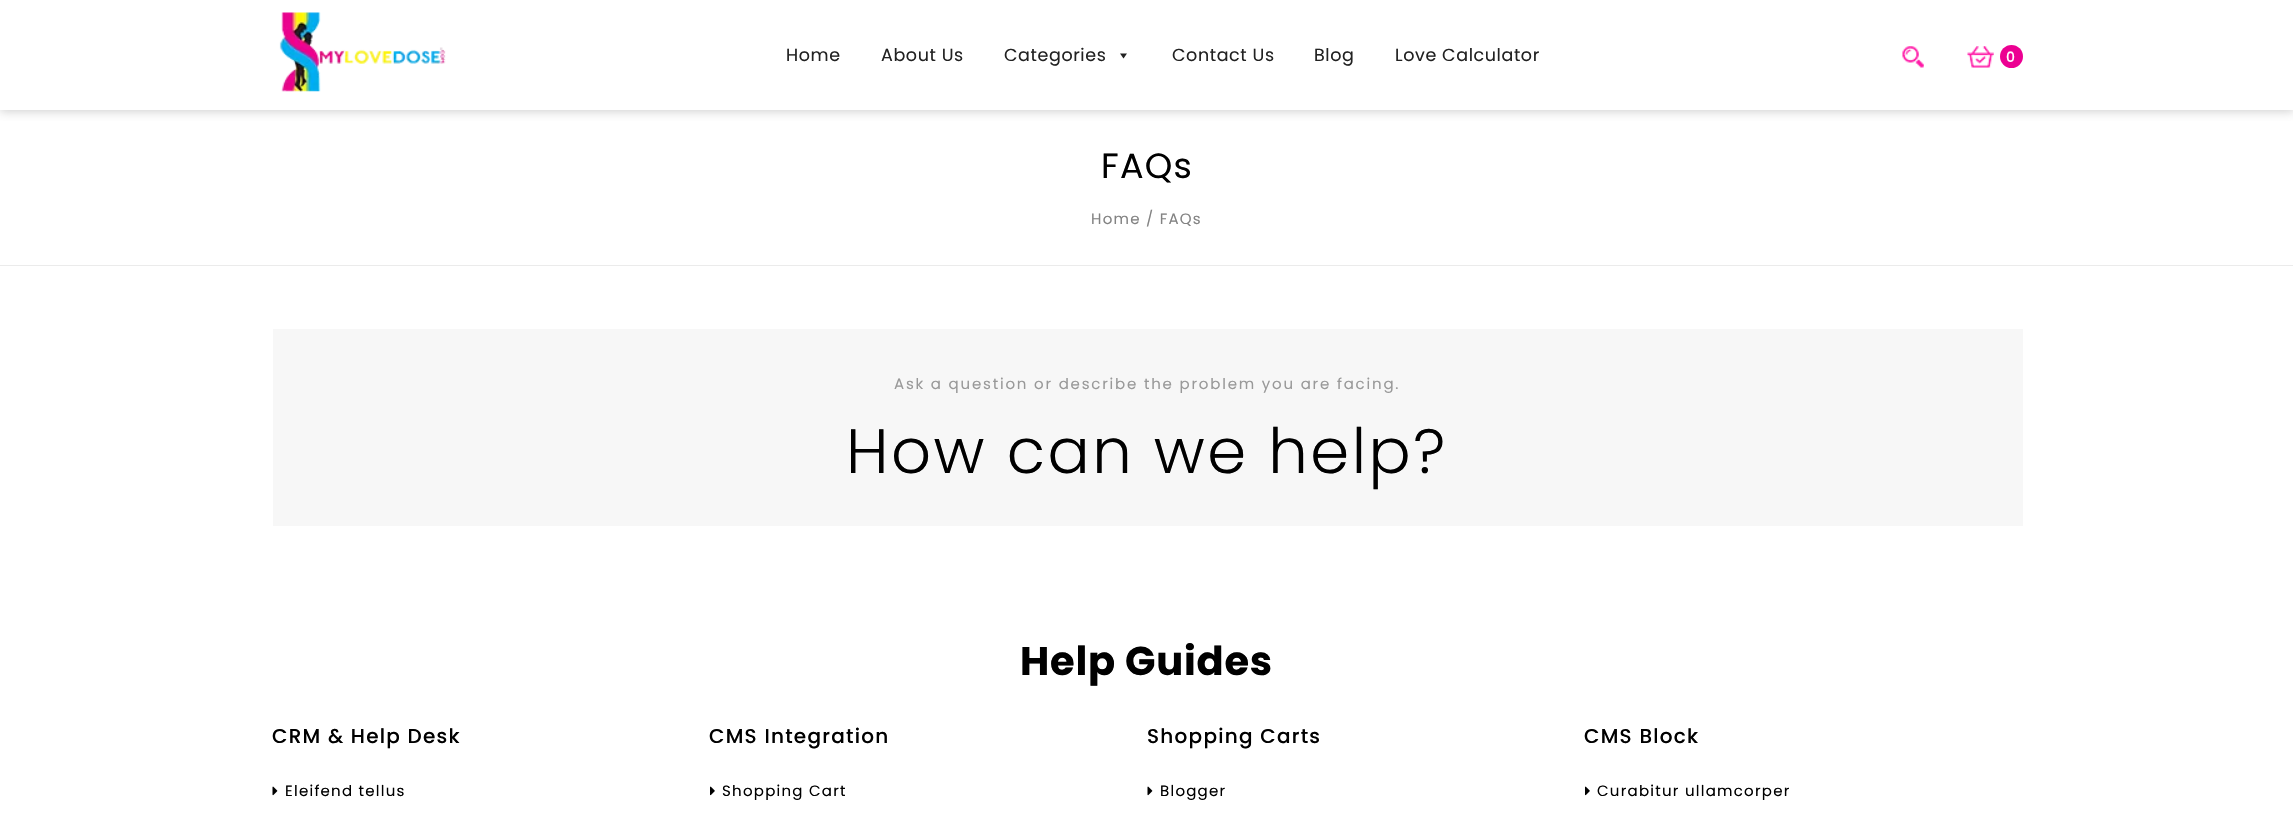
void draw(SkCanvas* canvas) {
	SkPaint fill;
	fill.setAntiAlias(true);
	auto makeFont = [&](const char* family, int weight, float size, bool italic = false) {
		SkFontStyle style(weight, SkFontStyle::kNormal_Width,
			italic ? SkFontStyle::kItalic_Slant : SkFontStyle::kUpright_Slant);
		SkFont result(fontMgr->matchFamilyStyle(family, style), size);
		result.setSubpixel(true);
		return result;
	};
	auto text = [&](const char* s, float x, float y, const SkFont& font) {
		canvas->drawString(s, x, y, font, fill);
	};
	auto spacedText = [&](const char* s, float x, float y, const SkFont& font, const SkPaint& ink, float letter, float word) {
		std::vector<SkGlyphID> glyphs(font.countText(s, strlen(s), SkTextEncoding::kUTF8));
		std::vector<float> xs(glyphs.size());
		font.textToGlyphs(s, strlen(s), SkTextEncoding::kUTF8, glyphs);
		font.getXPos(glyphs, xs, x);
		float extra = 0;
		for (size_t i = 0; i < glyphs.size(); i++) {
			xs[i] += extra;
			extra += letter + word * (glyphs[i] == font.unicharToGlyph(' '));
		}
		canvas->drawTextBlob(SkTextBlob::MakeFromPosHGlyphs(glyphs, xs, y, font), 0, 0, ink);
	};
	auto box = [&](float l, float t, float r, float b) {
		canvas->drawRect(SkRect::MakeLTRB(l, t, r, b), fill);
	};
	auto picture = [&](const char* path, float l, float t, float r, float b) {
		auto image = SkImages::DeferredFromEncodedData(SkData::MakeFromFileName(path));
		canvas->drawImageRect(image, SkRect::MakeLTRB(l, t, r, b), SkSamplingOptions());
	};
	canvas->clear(0xFFFFFFFF);
	canvas->save();
	canvas->clipRect(SkRect::MakeLTRB(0, 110, 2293, 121));
	fill.setColor(0xFFCCCCCC);
	fill.setMaskFilter(SkMaskFilter::MakeBlur(kNormal_SkBlurStyle, 5));
	canvas->drawRect(SkRect::MakeLTRB(0, 1, 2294, 111), fill);
	fill.setMaskFilter(nullptr);
	canvas->restore();
	picture("image0.png", 279, 12, 446, 92);
	fill.setColor(0xFF222222);
	canvas->drawPath(SkPathBuilder().moveTo(1127, 53.5f).lineTo(1123.5f, 58.5f).lineTo(1120, 53.5f).close().detach(), fill);
	picture("image1.png", 1902, 46, 1924, 68);
	picture("image2.png", 1967, 46, 1994, 68);
	fill.setColor(0xFFEC0092);
	canvas->drawCircle(2011.5f, 56.5f, 11.5f, fill);
	fill.setColor(0xFFEBEBEB);
	box(0, 265, 2293, 266);
	fill.setColor(0xFFF7F7F7);
	box(273, 329, 2023, 526);
	picture("image3.png", 272, 786, 278, 796);
	picture("image4.png", 710, 786, 715, 796);
	picture("image3.png", 1147, 786, 1153, 796);
	picture("image4.png", 1585, 786, 1590, 796);
	auto font1 = makeFont("Poppins", 400, 17.5f);
	fill.setColor(0xFF222222);
	spacedText("Home", 786, 61, font1, fill, 0.6f, 0);
	spacedText("About Us", 881, 61, font1, fill, 0.6f, 0);
	spacedText("Categories", 1004, 61, font1, fill, 0.6f, 0);
	spacedText("Contact Us", 1172, 61, font1, fill, 0.6f, 0);
	spacedText("Blog", 1314, 61, font1, fill, 0.6f, 0);
	spacedText("Love Calculator", 1395, 61, font1, fill, 0.6f, 0);
	auto font2 = makeFont("Poppins", 500, 14);
	fill.setColor(0xFFFFFFFF);
	text("0", 2006, 62, font2);
	auto font3 = makeFont("Poppins", 400, 35);
	fill.setColor(0xFF000000);
	spacedText("FAQs", 1101, 178, font3, fill, 1.25f, 0);
	auto font4 = makeFont("Poppins", 400, 15);
	fill.setColor(0xFF838383);
	spacedText("Home / FAQs", 1091, 224, font4, fill, 1.25f, 0);
	fill.setColor(0xFF999999);
	spacedText("Ask a question or describe the problem you are facing.", 894, 389, font4, fill, 1.8f, 0);
	auto font5 = makeFont("Poppins", 300, 62.5f);
	fill.setColor(0xFF000000);
	spacedText("How can we help?", 846, 473, font5, fill, 2.5f, 0);
	auto font6 = makeFont("Poppins", 700, 40);
	spacedText("Help Guides", 1020, 675, font6, fill, 0.75f, 0);
	auto font7 = makeFont("Poppins", 500, 20);
	spacedText("CRM & Help Desk", 272, 743, font7, fill, 1.25f, 0);
	spacedText("Eleifend tellus", 285, 796, font4, fill, 1.25f, 0);
	spacedText("CMS Integration", 709, 743, font7, fill, 1.25f, 0);
	spacedText("Shopping Cart", 722, 796, font4, fill, 1.25f, 0);
	spacedText("Shopping Carts", 1147, 743, font7, fill, 1.25f, 0);
	spacedText("Blogger", 1160, 796, font4, fill, 1.25f, 0);
	spacedText("CMS Block", 1584, 743, font7, fill, 1.25f, 0);
	spacedText("Curabitur ullamcorper", 1597, 796, font4, fill, 1.25f, 0);
}
